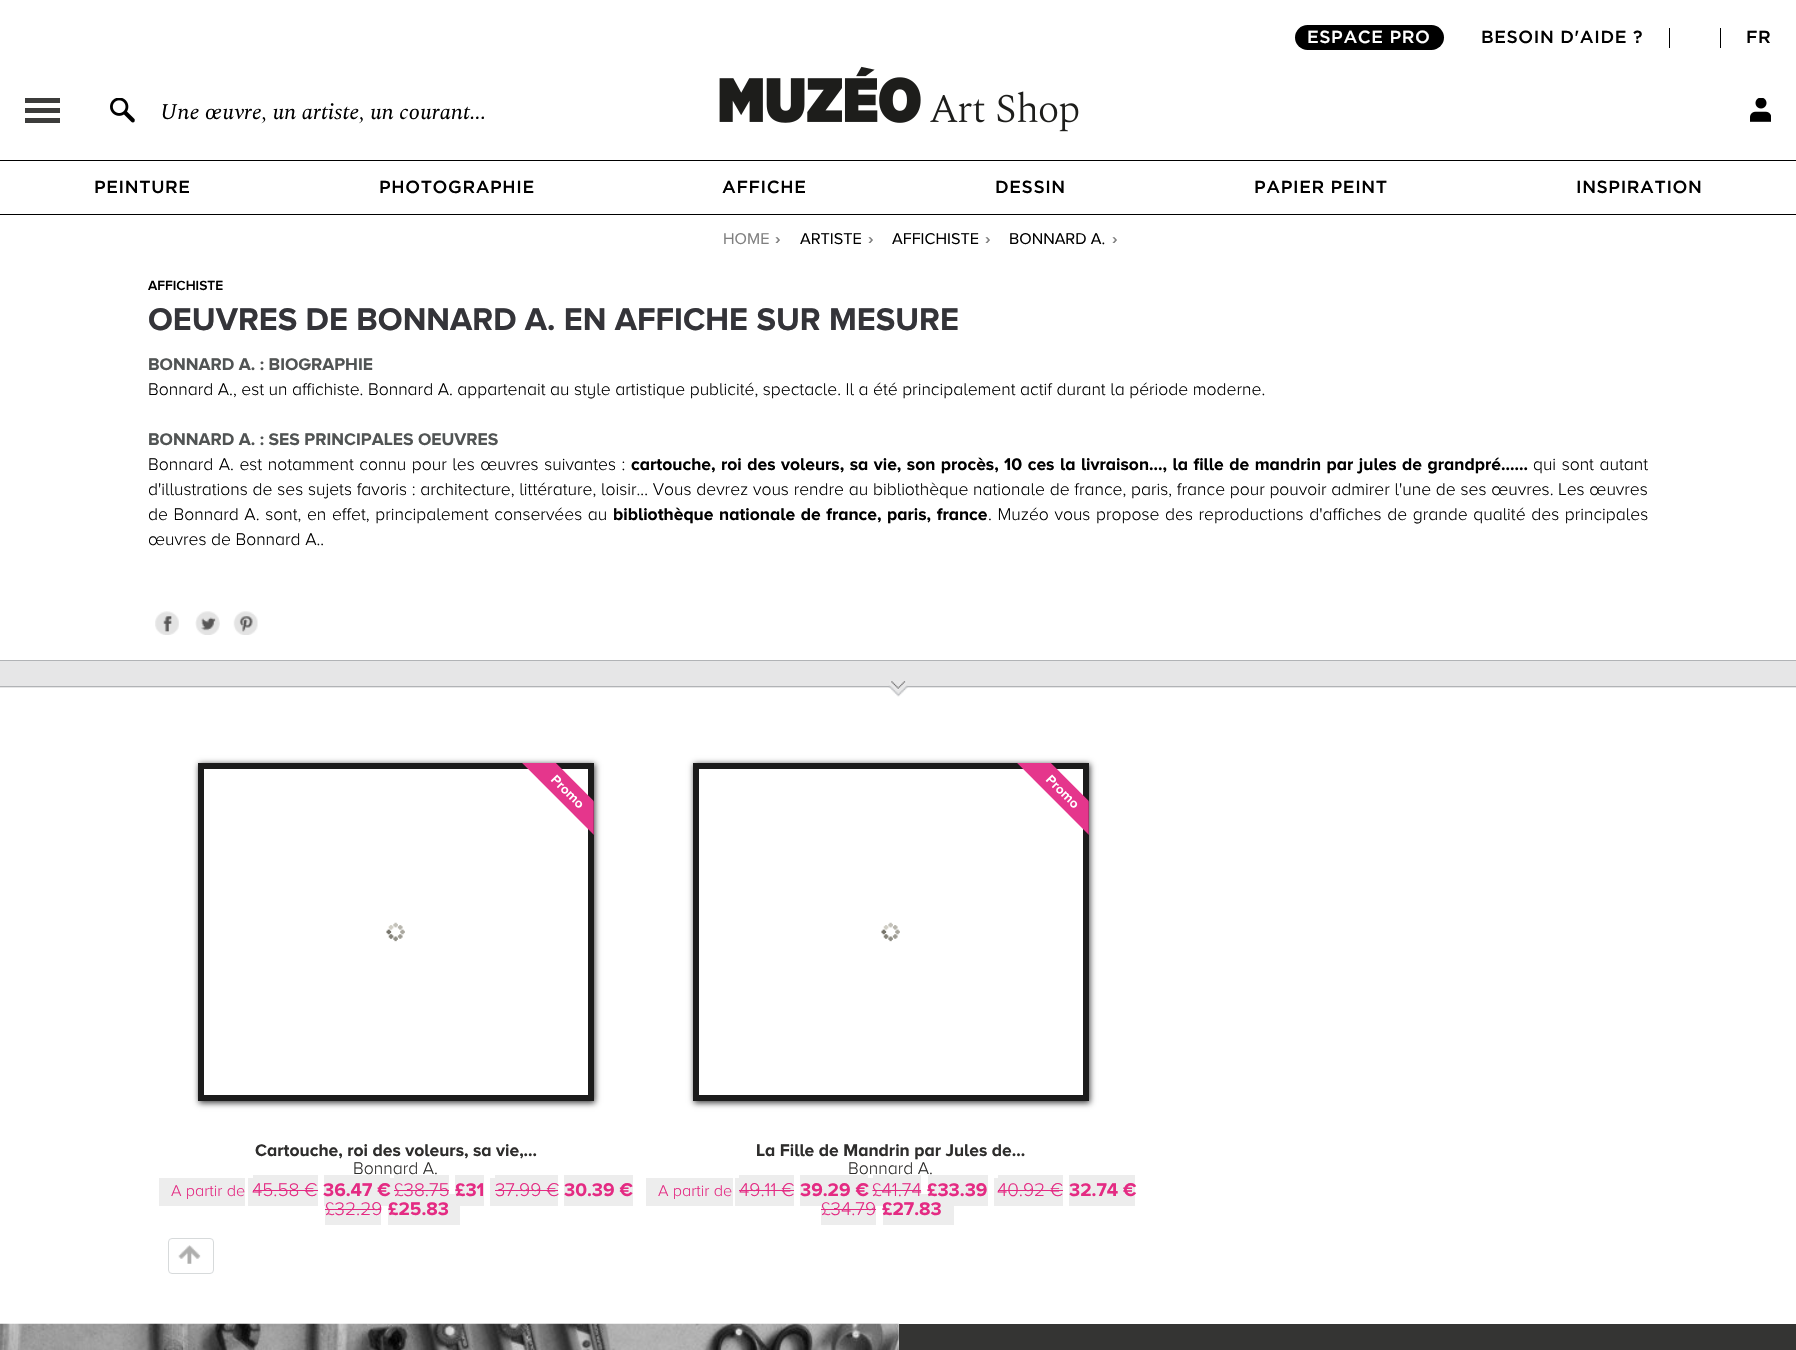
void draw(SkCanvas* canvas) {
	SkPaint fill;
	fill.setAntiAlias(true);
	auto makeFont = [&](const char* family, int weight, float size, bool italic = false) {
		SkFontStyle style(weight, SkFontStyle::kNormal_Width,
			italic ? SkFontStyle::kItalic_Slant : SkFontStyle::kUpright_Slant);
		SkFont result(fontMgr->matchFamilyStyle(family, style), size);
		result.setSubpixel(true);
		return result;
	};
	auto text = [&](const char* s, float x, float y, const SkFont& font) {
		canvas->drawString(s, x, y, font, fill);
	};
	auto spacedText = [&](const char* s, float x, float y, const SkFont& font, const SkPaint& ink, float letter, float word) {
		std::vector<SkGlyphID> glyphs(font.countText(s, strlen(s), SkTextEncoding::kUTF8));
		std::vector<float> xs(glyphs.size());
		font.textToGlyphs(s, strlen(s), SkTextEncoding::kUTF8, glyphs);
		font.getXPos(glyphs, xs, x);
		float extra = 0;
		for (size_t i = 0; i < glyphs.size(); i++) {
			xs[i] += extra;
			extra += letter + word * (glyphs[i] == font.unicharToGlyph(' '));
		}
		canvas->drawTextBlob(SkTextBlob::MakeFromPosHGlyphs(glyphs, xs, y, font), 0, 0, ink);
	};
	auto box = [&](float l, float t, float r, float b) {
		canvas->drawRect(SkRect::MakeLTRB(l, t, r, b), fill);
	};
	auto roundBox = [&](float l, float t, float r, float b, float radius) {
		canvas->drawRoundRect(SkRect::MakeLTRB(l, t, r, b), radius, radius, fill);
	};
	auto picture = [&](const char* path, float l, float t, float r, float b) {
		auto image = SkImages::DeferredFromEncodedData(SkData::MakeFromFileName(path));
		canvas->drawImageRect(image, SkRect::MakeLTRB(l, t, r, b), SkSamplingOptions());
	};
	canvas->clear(0xFFFFFFFF);
	fill.setColor(0xFF000000);
	roundBox(1295, 25, 1444, 50, 12.5f);
	box(1669, 28, 1670, 48);
	box(1720, 28, 1721, 48);
	fill.setColor(0xFF3C3C3B);
	box(25, 98, 60, 103);
	box(25, 108, 60, 113);
	box(25, 118, 60, 123);
	picture("image0.png", 110, 98, 135, 123);
	picture("image1.png", 719, 66, 1079, 132);
	picture("image2.png", 1750, 98, 1771, 122);
	fill.setColor(0xFF000000);
	box(0, 160, 1796, 161);
	box(0, 214, 1796, 215);
	picture("image3.png", 155, 611, 179, 635);
	picture("image4.png", 195, 611, 220, 635);
	picture("image5.png", 233, 611, 258, 635);
	fill.setColor(0xFFE6E6E7);
	box(0, 661, 1796, 688);
	fill.setColor(0xFFB1B3B6);
	box(0, 660, 1796, 661);
	box(0, 686, 1796, 687);
	picture("image6.png", 888, 681, 908, 697);
	canvas->save();
	canvas->clipPath(SkPathBuilder(SkPathFillType::kEvenOdd).moveTo(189, 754).lineTo(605, 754).lineTo(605, 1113).lineTo(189, 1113).close().moveTo(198, 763).lineTo(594, 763).lineTo(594, 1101).lineTo(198, 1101).close().detach(), true);
	fill.setColor(0xFF404041);
	fill.setMaskFilter(SkMaskFilter::MakeBlur(kNormal_SkBlurStyle, 3));
	canvas->drawRect(SkRect::MakeLTRB(199, 764, 595, 1103), fill);
	fill.setMaskFilter(nullptr);
	canvas->restore();
	fill.setStyle(SkPaint::kStroke_Style);
	fill.setStrokeWidth(6);
	fill.setColor(0xFF1B1B1B);
	canvas->drawRect(SkRect::MakeLTRB(201, 766, 591, 1098), fill);
	picture("image7.png", 522, 763, 594, 835);
	picture("image8.png", 386, 922, 405, 942);
	fill.setStyle(SkPaint::kFill_Style);
	fill.setColor(0xFFEDEDED);
	box(159, 1178, 245, 1206);
	box(248, 1178, 253, 1206);
	box(253, 1175, 318, 1206);
	fill.setColor(0xFFE42B83);
	box(253, 1190, 318, 1191);
	fill.setColor(0xFFEDEDED);
	box(324, 1175, 390, 1206);
	box(390, 1178, 394, 1194);
	box(394, 1175, 449, 1194);
	fill.setColor(0xFFE42B83);
	box(394, 1190, 449, 1191);
	fill.setColor(0xFFEDEDED);
	box(455, 1175, 484, 1206);
	box(490, 1178, 495, 1206);
	box(495, 1175, 558, 1206);
	fill.setColor(0xFFE42B83);
	box(495, 1190, 558, 1191);
	fill.setColor(0xFFEDEDED);
	box(564, 1175, 633, 1206);
	box(325, 1206, 381, 1225);
	fill.setColor(0xFFE42B83);
	box(325, 1209, 381, 1210);
	fill.setColor(0xFFEDEDED);
	box(388, 1194, 460, 1225);
	canvas->save();
	canvas->clipPath(SkPathBuilder(SkPathFillType::kEvenOdd).moveTo(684, 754).lineTo(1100, 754).lineTo(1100, 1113).lineTo(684, 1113).close().moveTo(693, 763).lineTo(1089, 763).lineTo(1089, 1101).lineTo(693, 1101).close().detach(), true);
	fill.setColor(0xFF404041);
	fill.setMaskFilter(SkMaskFilter::MakeBlur(kNormal_SkBlurStyle, 3));
	canvas->drawRect(SkRect::MakeLTRB(694, 764, 1090, 1103), fill);
	fill.setMaskFilter(nullptr);
	canvas->restore();
	fill.setStyle(SkPaint::kStroke_Style);
	fill.setColor(0xFF1B1B1B);
	canvas->drawRect(SkRect::MakeLTRB(696, 766, 1086, 1098), fill);
	picture("image7.png", 1017, 763, 1089, 835);
	picture("image8.png", 881, 922, 900, 942);
	fill.setStyle(SkPaint::kFill_Style);
	fill.setColor(0xFFEDEDED);
	box(646, 1178, 733, 1206);
	box(735, 1178, 739, 1206);
	box(739, 1175, 794, 1206);
	fill.setColor(0xFFE42B83);
	box(739, 1190, 794, 1191);
	fill.setColor(0xFFEDEDED);
	box(800, 1175, 868, 1206);
	box(868, 1178, 873, 1194);
	box(873, 1175, 921, 1206);
	fill.setColor(0xFFE42B83);
	box(873, 1190, 921, 1191);
	fill.setColor(0xFFEDEDED);
	box(928, 1175, 988, 1206);
	box(994, 1178, 998, 1206);
	box(998, 1175, 1063, 1206);
	fill.setColor(0xFFE42B83);
	box(998, 1190, 1063, 1191);
	fill.setColor(0xFFEDEDED);
	box(1069, 1175, 1135, 1206);
	box(821, 1206, 831, 1225);
	box(831, 1194, 876, 1225);
	fill.setColor(0xFFE42B83);
	box(821, 1209, 876, 1210);
	fill.setColor(0xFFEDEDED);
	box(883, 1194, 954, 1225);
	fill.setStyle(SkPaint::kStroke_Style);
	fill.setStrokeWidth(1);
	fill.setColor(0xFFD7DADB);
	canvas->drawRoundRect(SkRect::MakeLTRB(168.5f, 1238.5f, 213.5f, 1273.5f), 3.5f, 3.5f, fill);
	picture("image9.png", 178, 1245, 201, 1264);
	picture("image10.png", 0, 1323, 899, 1350);
	fill.setStyle(SkPaint::kFill_Style);
	fill.setColor(0xFF343433);
	box(899, 1324, 1796, 1350);
	auto font1 = makeFont("Gotham", 500, 17.5f);
	fill.setColor(0xFFFFFFFF);
	spacedText("ESPACE PRO", 1307, 43, font1, fill, 0.6f, 0);
	fill.setColor(0xFF000000);
	spacedText("BESOIN D'AIDE ?", 1481, 43, font1, fill, 0.6f, 0);
	spacedText("FR", 1746, 43, font1, fill, 0.6f, 0);
	auto font2 = makeFont("Spectral", 400, 22.5f, true);
	text("Une œuvre, un artiste, un courant...", 160, 119, font2);
	spacedText("PEINTURE", 94, 193, font1, fill, 0.6f, 0);
	spacedText("PHOTOGRAPHIE", 379, 193, font1, fill, 0.6f, 0);
	spacedText("AFFICHE", 722, 193, font1, fill, 0.6f, 0);
	spacedText("DESSIN", 995, 193, font1, fill, 0.6f, 0);
	spacedText("PAPIER PEINT", 1254, 193, font1, fill, 0.6f, 0);
	spacedText("INSPIRATION", 1576, 193, font1, fill, 0.6f, 0);
	auto font3 = makeFont("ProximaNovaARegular", 400, 16.25f);
	fill.setColor(0xFF808080);
	text("HOME", 723, 244, font3);
	auto font4 = makeFont("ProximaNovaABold", 700, 16.25f);
	text("›", 775, 244, font4);
	fill.setColor(0xFF000000);
	text("ARTISTE", 800, 244, font3);
	fill.setColor(0xFF808080);
	text("›", 868, 244, font4);
	fill.setColor(0xFF000000);
	text("AFFICHISTE", 892, 244, font3);
	fill.setColor(0xFF808080);
	text("›", 985, 244, font4);
	fill.setColor(0xFF000000);
	text("BONNARD A.", 1009, 244, font3);
	fill.setColor(0xFF808080);
	text("›", 1112, 244, font4);
	auto font5 = makeFont("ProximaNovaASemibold", 600, 13.75f);
	fill.setColor(0xFF000000);
	text("AFFICHISTE", 148, 290, font5);
	auto font6 = makeFont("ProximaNovaABold", 700, 32.5f);
	fill.setColor(0xFF343439);
	text("OEUVRES DE BONNARD A. EN AFFICHE SUR MESURE", 148, 330, font6);
	auto font7 = makeFont("ProximaNovaABold", 700, 17.5f);
	fill.setColor(0xFF515454);
	text("BONNARD A. : BIOGRAPHIE", 148, 370, font7);
	auto font8 = makeFont("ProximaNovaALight", 300, 17.5f);
	fill.setColor(0xFF000000);
	text("Bonnard A., est un affichiste. Bonnard A. appartenait au style artistique publicité, spectacle. Il a été principalement actif durant la période moderne.", 148, 395, font8);
	fill.setColor(0xFF515454);
	text("BONNARD A. : SES PRINCIPALES OEUVRES", 148, 445, font7);
	fill.setColor(0xFF000000);
	spacedText("Bonnard A. est notamment connu pour les œuvres suivantes :", 148, 470, font8, fill, 0, 1);
	spacedText("cartouche, roi des voleurs, sa vie, son procès, 10 ces la livraison..., la fille de mandrin par jules de grandpré......", 631, 470, font7, fill, 0, 1);
	spacedText("qui sont autant", 1533, 470, font8, fill, 0, 1);
	spacedText("d'illustrations de ses sujets favoris : architecture, littérature, loisir... Vous devrez vous rendre au bibliothèque nationale de france, paris, france pour pouvoir admirer l'une de ses œuvres. Les œuvres", 148, 495, font8, fill, 0, 0.2f);
	spacedText("de Bonnard A. sont, en effet, principalement conservées au", 148, 520, font8, fill, 0, 1.1f);
	spacedText("bibliothèque nationale de france, paris, france", 613, 520, font7, fill, 0, 1.1f);
	spacedText(". Muzéo vous propose des reproductions d'affiches de grande qualité des principales", 988, 520, font8, fill, 0, 1.1f);
	text("œuvres de Bonnard A..", 148, 545, font8);
	fill.setColor(0xFF2E2D2C);
	text("Cartouche, roi des voleurs, sa vie,...", 255, 1156, font7);
	text("Bonnard A.", 353, 1174, font8);
	auto font9 = makeFont("ProximaNovaALight", 300, 16.25f);
	fill.setColor(0xFFE42B83);
	text("A partir de", 171, 1196, font9);
	auto font10 = makeFont("ProximaNovaALight", 300, 19);
	text("45.58 €", 252, 1196, font10);
	auto font11 = makeFont("ProximaNovaABold", 700, 19);
	text("36.47 €", 323, 1196, font11);
	text("£38.75", 394, 1196, font10);
	text("£31", 455, 1196, font11);
	text("37.99 €", 495, 1196, font10);
	text("30.39 €", 564, 1196, font11);
	text("£32.29", 325, 1215, font10);
	text("£25.83", 388, 1215, font11);
	fill.setColor(0xFF2E2D2C);
	text("La Fille de Mandrin par Jules de...", 756, 1156, font7);
	text("Bonnard A.", 848, 1174, font8);
	fill.setColor(0xFFE42B83);
	text("A partir de", 658, 1196, font9);
	text("49.11 €", 739, 1196, font10);
	text("39.29 €", 800, 1196, font11);
	text("£41.74", 872, 1196, font10);
	text("£33.39", 927, 1196, font11);
	text("40.92 €", 997, 1196, font10);
	text("32.74 €", 1069, 1196, font11);
	text("£34.79", 821, 1215, font10);
	text("£27.83", 882, 1215, font11);
}
